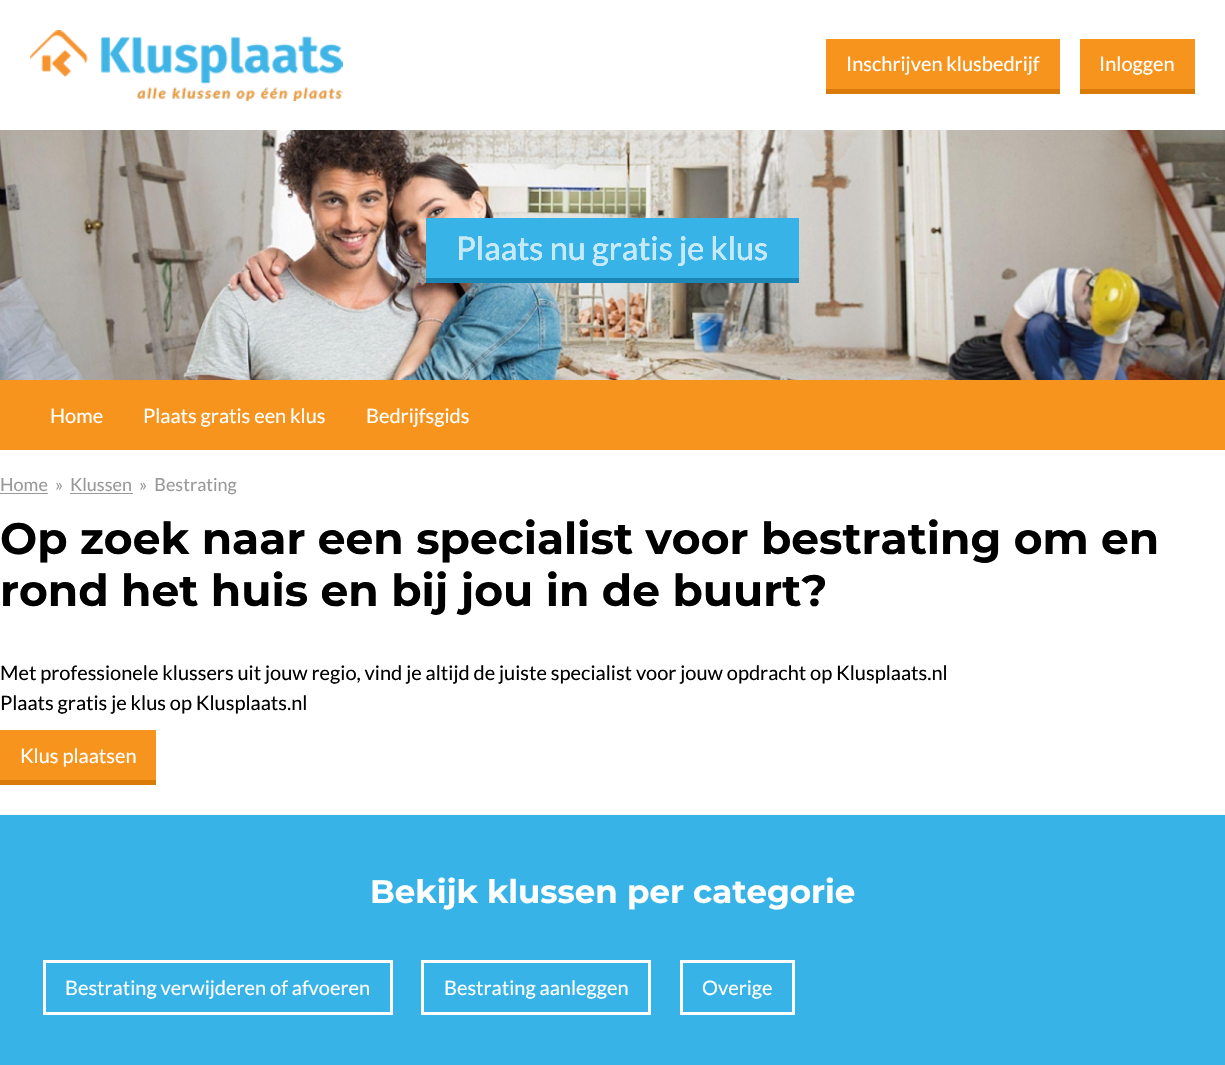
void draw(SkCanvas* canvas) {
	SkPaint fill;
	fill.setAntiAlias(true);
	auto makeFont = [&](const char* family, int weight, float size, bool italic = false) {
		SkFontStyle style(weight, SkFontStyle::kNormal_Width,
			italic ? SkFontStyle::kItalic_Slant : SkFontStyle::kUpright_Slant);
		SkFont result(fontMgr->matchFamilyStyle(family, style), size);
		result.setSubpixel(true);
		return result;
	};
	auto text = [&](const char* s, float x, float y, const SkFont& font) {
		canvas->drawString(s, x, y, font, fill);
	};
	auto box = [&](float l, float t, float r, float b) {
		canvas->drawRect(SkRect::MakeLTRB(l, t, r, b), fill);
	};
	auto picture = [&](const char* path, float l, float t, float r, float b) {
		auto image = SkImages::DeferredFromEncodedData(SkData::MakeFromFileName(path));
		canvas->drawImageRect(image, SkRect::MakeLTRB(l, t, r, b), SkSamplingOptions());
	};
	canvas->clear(0xFFFFFFFF);
	picture("image0.png", 30, 30, 343, 101);
	fill.setColor(0xFFF7941E);
	box(826, 39, 1060, 89);
	fill.setColor(0xFFDA7A08);
	box(826, 89, 1060, 94);
	fill.setColor(0xFFF7941E);
	box(1080, 39, 1195, 89);
	fill.setColor(0xFFDA7A08);
	box(1080, 89, 1195, 94);
	picture("image1.png", 0, 130, 1225, 380);
	fill.setColor(0xFF37B3E8);
	box(426, 218, 799, 278);
	fill.setColor(0xFF1A87B6);
	box(426, 278, 799, 283);
	fill.setColor(0xFFF7941E);
	box(0, 380, 1225, 450);
	fill.setColor(0xFF999999);
	box(0, 493, 48, 494);
	box(70, 493, 133, 494);
	fill.setColor(0xFFF7941E);
	box(0, 730, 156, 780);
	fill.setColor(0xFFDA7A08);
	box(0, 780, 156, 785);
	fill.setColor(0xFF37B3E8);
	box(0, 815, 1225, 1065);
	fill.setStyle(SkPaint::kStroke_Style);
	fill.setStrokeWidth(3);
	fill.setColor(0xFFFFFFFF);
	canvas->drawRect(SkRect::MakeLTRB(44.5f, 961.5f, 391.5f, 1013.5f), fill);
	canvas->drawRect(SkRect::MakeLTRB(422.5f, 961.5f, 649.5f, 1013.5f), fill);
	canvas->drawRect(SkRect::MakeLTRB(681.5f, 961.5f, 793.5f, 1013.5f), fill);
	auto font1 = makeFont("Lato", 400, 20);
	fill.setStyle(SkPaint::kFill_Style);
	text("Inschrijven klusbedrijf", 846, 71, font1);
	text("Inloggen", 1099, 71, font1);
	auto font2 = makeFont("Lato", 400, 32.5f);
	text("Plaats nu gratis je klus", 456, 260, font2);
	fill.setColor(0xFFC6E9F8);
	text("Plaats nu gratis je klus", 456, 260, font2);
	fill.setColor(0xFFFFFFFF);
	text("Home", 50, 423, font1);
	text("Plaats gratis een klus", 143, 423, font1);
	text("Bedrijfsgids", 366, 423, font1);
	auto font3 = makeFont("Lato", 400, 18);
	fill.setColor(0xFF999999);
	text("Home", 0, 491, font3);
	text("»", 55, 491, font3);
	text("Klussen", 70, 491, font3);
	text("»  Bestrating", 139, 491, font3);
	auto font4 = makeFont("Montserrat", 700, 44);
	fill.setColor(0xFF000000);
	text("Op zoek naar een specialist voor bestrating om en", 0, 554, font4);
	text("rond het huis en bij jou in de buurt?", 0, 606, font4);
	text("Met professionele klussers uit jouw regio, vind je altijd de juiste specialist voor jouw opdracht op Klusplaats.nl", 0, 680, font1);
	text("Plaats gratis je klus op Klusplaats.nl", 0, 710, font1);
	fill.setColor(0xFFFFFFFF);
	text("Klus plaatsen", 20, 763, font1);
	auto font5 = makeFont("Montserrat", 700, 32.5f);
	text("Bekijk klussen per categorie", 370, 903, font5);
	text("Bestrating verwijderen of afvoeren", 65, 995, font1);
	text("Bestrating aanleggen", 444, 995, font1);
	text("Overige", 702, 995, font1);
}
